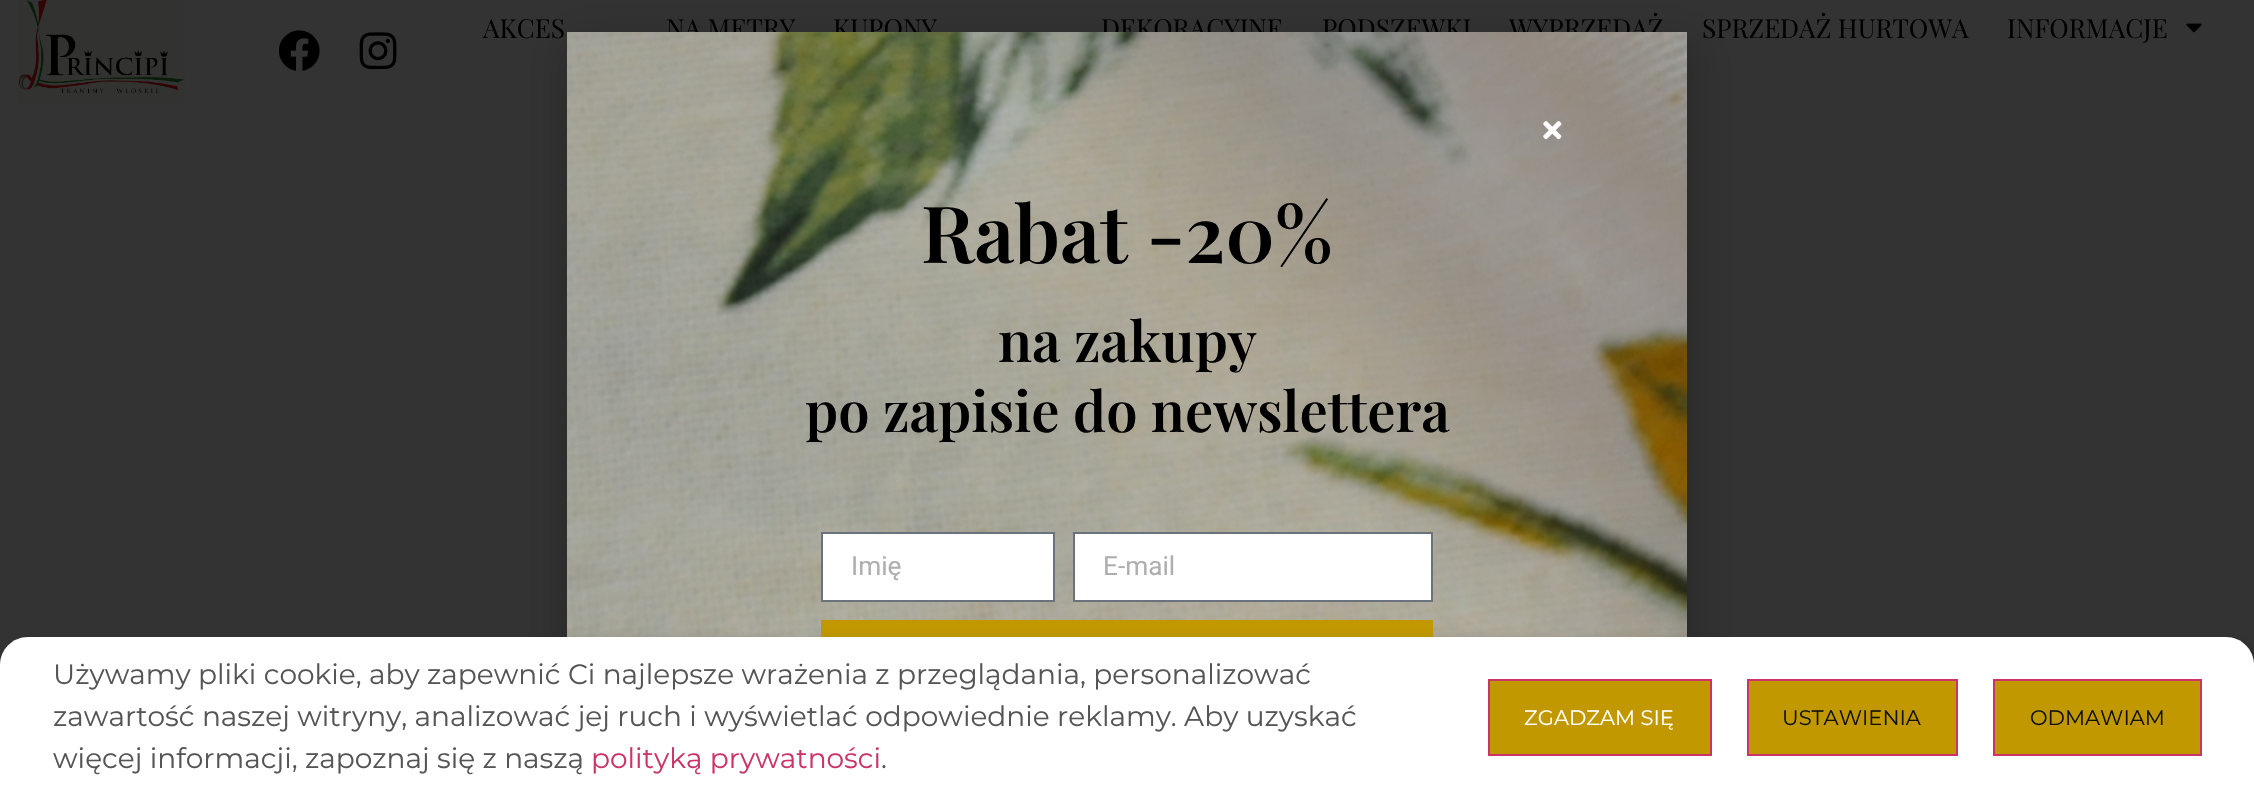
void draw(SkCanvas* canvas) {
	SkPaint fill;
	fill.setAntiAlias(true);
	auto makeFont = [&](const char* family, int weight, float size, bool italic = false) {
		SkFontStyle style(weight, SkFontStyle::kNormal_Width,
			italic ? SkFontStyle::kItalic_Slant : SkFontStyle::kUpright_Slant);
		SkFont result(fontMgr->matchFamilyStyle(family, style), size);
		result.setSubpixel(true);
		return result;
	};
	auto text = [&](const char* s, float x, float y, const SkFont& font) {
		canvas->drawString(s, x, y, font, fill);
	};
	auto box = [&](float l, float t, float r, float b) {
		canvas->drawRect(SkRect::MakeLTRB(l, t, r, b), fill);
	};
	auto picture = [&](const char* path, float l, float t, float r, float b) {
		auto image = SkImages::DeferredFromEncodedData(SkData::MakeFromFileName(path));
		canvas->drawImageRect(image, SkRect::MakeLTRB(l, t, r, b), SkSamplingOptions());
	};
	canvas->clear(0xFF333333);
	picture("image0.png", 17, 0, 186, 103);
	picture("image1.png", 278, 30, 320, 71);
	picture("image2.png", 359, 32, 397, 70);
	picture("image3.png", 2186, 23, 2202, 33);
	fill.setColor(0x33000000);
	fill.setMaskFilter(SkMaskFilter::MakeBlur(kNormal_SkBlurStyle, 20));
	canvas->drawRect(SkRect::MakeLTRB(565, 40, 1696, 786), fill);
	fill.setMaskFilter(nullptr);
	auto font1 = makeFont("Playfair Display", 400, 26.25f);
	fill.setColor(0xFF000000);
	text("AKCES", 483, 38, font1);
	text("NA METRY", 666, 38, font1);
	text("KUPONY", 833, 38, font1);
	text("DEKORACYJNE", 1101, 38, font1);
	text("PODSZEWKI", 1322, 38, font1);
	text("WYPRZEDAŻ", 1509, 38, font1);
	text("SPRZEDAŻ HURTOWA", 1702, 38, font1);
	text("INFORMACJE", 2007, 38, font1);
	picture("image4.png", 567, 32, 1687, 637);
	picture("image5.png", 1543, 121, 1562, 140);
	auto font2 = makeFont("Playfair Display", 600, 78.75f);
	text("Rabat -20%", 921, 263, font2);
	auto font3 = makeFont("Playfair Display", 600, 56);
	text("na zakupy", 998, 362, font3);
	text("po zapisie do newslettera", 805, 432, font3);
	fill.setColor(0xFFFFFFFF);
	canvas->drawRect(SkRect::MakeLTRB(822, 533, 1054, 601), fill);
	fill.setStyle(SkPaint::kStroke_Style);
	fill.setStrokeWidth(2);
	fill.setColor(0xFF69727D);
	canvas->drawRect(SkRect::MakeLTRB(822, 533, 1054, 601), fill);
	auto font4 = makeFont("Roboto", 400, 26.25f);
	fill.setStyle(SkPaint::kFill_Style);
	fill.setColor(0xFFAFAFAF);
	text("Imię", 851, 575, font4);
	fill.setColor(0xFFFFFFFF);
	canvas->drawRect(SkRect::MakeLTRB(1074, 533, 1432, 601), fill);
	fill.setStyle(SkPaint::kStroke_Style);
	fill.setColor(0xFF69727D);
	canvas->drawRect(SkRect::MakeLTRB(1074, 533, 1432, 601), fill);
	fill.setStyle(SkPaint::kFill_Style);
	fill.setColor(0xFFAFAFAF);
	text("E-mail", 1103, 575, font4);
	fill.setColor(0xFFC19800);
	box(821, 620, 1433, 637);
	fill.setColor(0x33000000);
	fill.setMaskFilter(SkMaskFilter::MakeBlur(kNormal_SkBlurStyle, 6));
	canvas->drawRoundRect(SkRect::MakeLTRB(4, 642, 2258, 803), 28, 28, fill);
	fill.setMaskFilter(nullptr);
	fill.setColor(0xFFFFFFFF);
	canvas->drawPath(SkPathBuilder().moveTo(28, 637).lineTo(2226, 637).cubicTo(2241.5f, 637, 2254, 649.5f, 2254, 665).lineTo(2254, 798).lineTo(0, 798).lineTo(0, 665).cubicTo(0, 649.5f, 12.5f, 637, 28, 637).close().detach(), fill);
	auto font5 = makeFont("Montserrat", 400, 28);
	fill.setColor(0xFF555555);
	text("Używamy pliki cookie, aby zapewnić Ci najlepsze wrażenia z przeglądania, personalizować", 53, 684, font5);
	text("zawartość naszej witryny, analizować jej ruch i wyświetlać odpowiednie reklamy. Aby uzyskać", 53, 726, font5);
	text("więcej informacji, zapoznaj się z naszą", 53, 768, font5);
	fill.setColor(0xFFCC3366);
	text("polityką prywatności", 591, 768, font5);
	fill.setColor(0xFF555555);
	text(".", 881, 768, font5);
	fill.setColor(0xFFC19800);
	canvas->drawRect(SkRect::MakeLTRB(1489, 680, 1711, 755), fill);
	fill.setStyle(SkPaint::kStroke_Style);
	fill.setColor(0xFFCC3366);
	canvas->drawRect(SkRect::MakeLTRB(1489, 680, 1711, 755), fill);
	auto font6 = makeFont("Montserrat", 400, 21);
	fill.setStyle(SkPaint::kFill_Style);
	fill.setColor(0xFFFFFFFF);
	text("ZGADZAM SIĘ", 1524, 725, font6);
	fill.setColor(0xFFC19800);
	canvas->drawRect(SkRect::MakeLTRB(1748, 680, 1957, 755), fill);
	fill.setStyle(SkPaint::kStroke_Style);
	fill.setColor(0xFFCC3366);
	canvas->drawRect(SkRect::MakeLTRB(1748, 680, 1957, 755), fill);
	fill.setStyle(SkPaint::kFill_Style);
	fill.setColor(0xFF111111);
	text("USTAWIENIA", 1782, 725, font6);
	fill.setColor(0xFFC19800);
	canvas->drawRect(SkRect::MakeLTRB(1994, 680, 2201, 755), fill);
	fill.setStyle(SkPaint::kStroke_Style);
	fill.setColor(0xFFCC3366);
	canvas->drawRect(SkRect::MakeLTRB(1994, 680, 2201, 755), fill);
	fill.setStyle(SkPaint::kFill_Style);
	fill.setColor(0xFF111111);
	text("ODMAWIAM", 2030, 725, font6);
}
